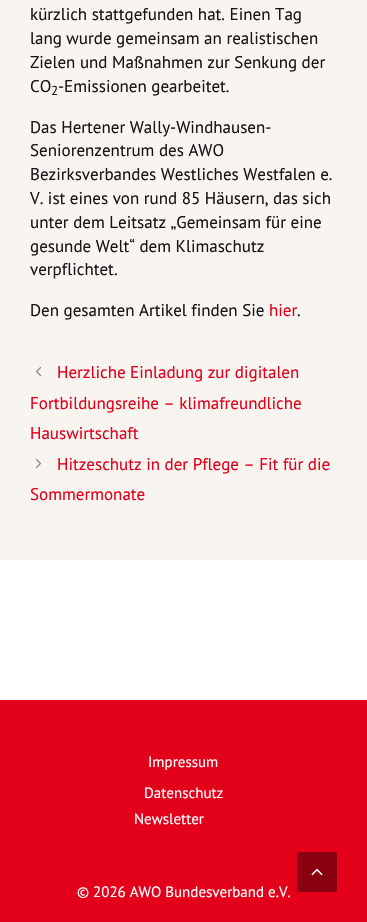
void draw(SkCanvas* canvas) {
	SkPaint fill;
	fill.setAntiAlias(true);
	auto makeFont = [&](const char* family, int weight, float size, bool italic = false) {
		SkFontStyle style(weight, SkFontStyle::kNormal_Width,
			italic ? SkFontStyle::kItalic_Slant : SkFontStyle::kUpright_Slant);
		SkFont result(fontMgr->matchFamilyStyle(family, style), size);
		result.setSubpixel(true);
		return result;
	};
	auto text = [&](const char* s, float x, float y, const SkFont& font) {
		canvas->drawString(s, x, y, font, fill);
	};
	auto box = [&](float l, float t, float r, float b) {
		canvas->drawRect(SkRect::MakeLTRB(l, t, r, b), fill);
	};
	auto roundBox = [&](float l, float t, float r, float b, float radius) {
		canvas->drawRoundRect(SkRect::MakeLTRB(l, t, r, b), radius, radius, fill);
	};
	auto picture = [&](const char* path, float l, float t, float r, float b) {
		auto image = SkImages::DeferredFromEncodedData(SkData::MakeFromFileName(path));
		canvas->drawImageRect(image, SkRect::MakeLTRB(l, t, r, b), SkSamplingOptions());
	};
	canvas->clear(0xFFF8F4F0);
	picture("image0.png", 35, 366, 42, 377);
	picture("image1.png", 35, 458, 42, 469);
	fill.setColor(0xFFFFFFFF);
	box(0, 560, 367, 700);
	fill.setColor(0xFFE2001A);
	box(0, 700, 367, 922);
	fill.setColor(0xFF880010);
	roundBox(297, 852, 337, 892, 3);
	picture("image2.png", 311, 868, 323, 876);
	auto font1 = makeFont("PT Sans", 400, 17);
	fill.setColor(0xFF161616);
	text("kürzlich stattgefunden hat. Einen Tag", 30, 20, font1);
	text("lang wurde gemeinsam an realistischen", 30, 44, font1);
	text("Zielen und Maßnahmen zur Senkung der", 30, 68, font1);
	text("CO", 30, 92, font1);
	auto font2 = makeFont("PT Sans", 400, 13);
	text("2", 51, 95, font2);
	text("-Emissionen gearbeitet.", 58, 92, font1);
	text("Das Hertener Wally-Windhausen-", 30, 133, font1);
	text("Seniorenzentrum des AWO", 30, 156, font1);
	text("Bezirksverbandes Westliches Westfalen e.", 30, 180, font1);
	text("V. ist eines von rund 85 Häusern, das sich", 30, 204, font1);
	text("unter dem Leitsatz „Gemeinsam für eine", 30, 228, font1);
	text("gesunde Welt“ dem Klimaschutz", 30, 252, font1);
	text("verpflichtet.", 30, 275, font1);
	text("Den gesamten Artikel finden Sie", 30, 316, font1);
	fill.setColor(0xFFE2001A);
	text("hier", 269, 316, font1);
	fill.setColor(0xFF161616);
	text(".", 297, 316, font1);
	fill.setColor(0xFFE2001A);
	text("Herzliche Einladung zur digitalen", 57, 378, font1);
	text("Fortbildungsreihe – klimafreundliche", 30, 409, font1);
	text("Hauswirtschaft", 30, 439, font1);
	text("Hitzeschutz in der Pflege – Fit für die", 57, 470, font1);
	text("Sommermonate", 30, 500, font1);
	auto font3 = makeFont("PT Sans", 400, 15);
	fill.setColor(0xFFFFFFFF);
	text("Impressum", 148, 767, font3);
	text("Datenschutz", 144, 798, font3);
	text("Newsletter", 134, 824, font3);
	text("© 2026 AWO Bundesverband e.V.", 77, 897, font3);
}
